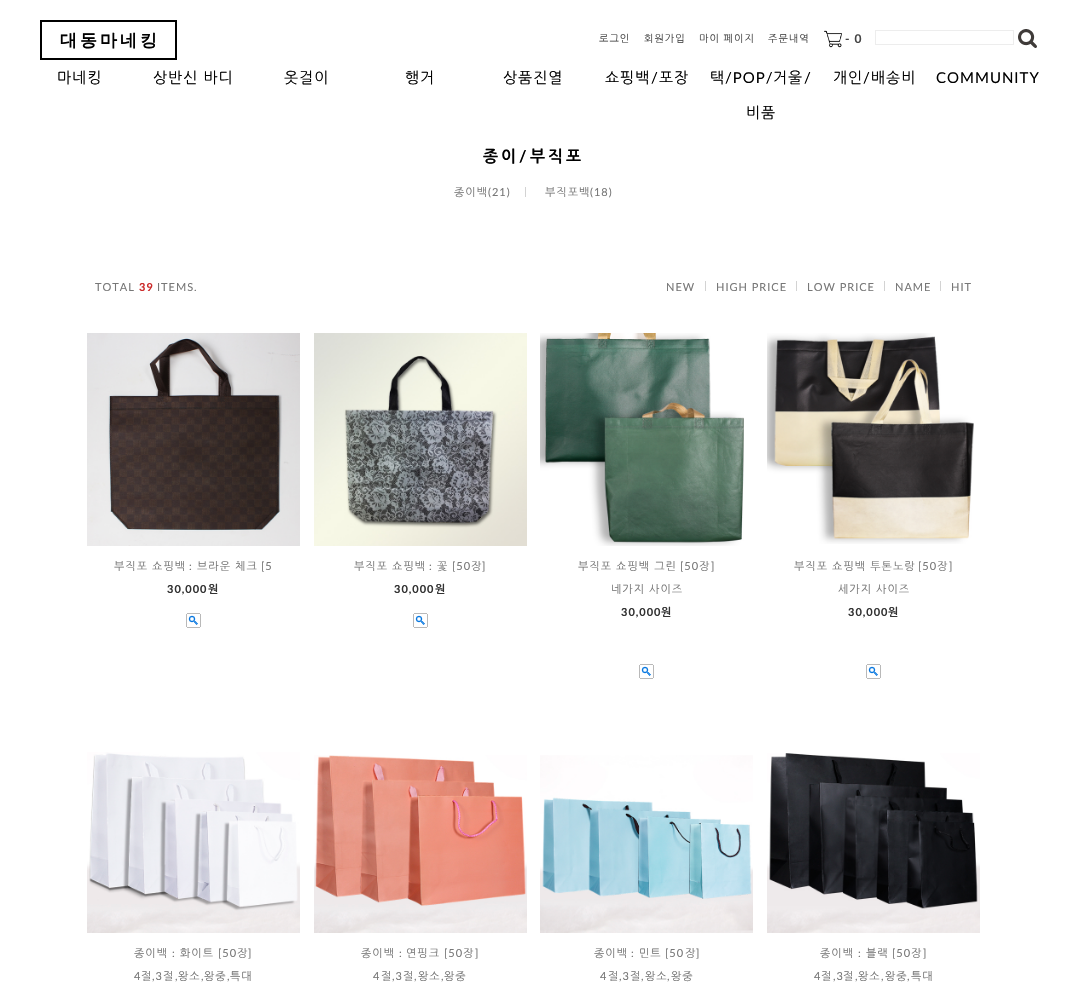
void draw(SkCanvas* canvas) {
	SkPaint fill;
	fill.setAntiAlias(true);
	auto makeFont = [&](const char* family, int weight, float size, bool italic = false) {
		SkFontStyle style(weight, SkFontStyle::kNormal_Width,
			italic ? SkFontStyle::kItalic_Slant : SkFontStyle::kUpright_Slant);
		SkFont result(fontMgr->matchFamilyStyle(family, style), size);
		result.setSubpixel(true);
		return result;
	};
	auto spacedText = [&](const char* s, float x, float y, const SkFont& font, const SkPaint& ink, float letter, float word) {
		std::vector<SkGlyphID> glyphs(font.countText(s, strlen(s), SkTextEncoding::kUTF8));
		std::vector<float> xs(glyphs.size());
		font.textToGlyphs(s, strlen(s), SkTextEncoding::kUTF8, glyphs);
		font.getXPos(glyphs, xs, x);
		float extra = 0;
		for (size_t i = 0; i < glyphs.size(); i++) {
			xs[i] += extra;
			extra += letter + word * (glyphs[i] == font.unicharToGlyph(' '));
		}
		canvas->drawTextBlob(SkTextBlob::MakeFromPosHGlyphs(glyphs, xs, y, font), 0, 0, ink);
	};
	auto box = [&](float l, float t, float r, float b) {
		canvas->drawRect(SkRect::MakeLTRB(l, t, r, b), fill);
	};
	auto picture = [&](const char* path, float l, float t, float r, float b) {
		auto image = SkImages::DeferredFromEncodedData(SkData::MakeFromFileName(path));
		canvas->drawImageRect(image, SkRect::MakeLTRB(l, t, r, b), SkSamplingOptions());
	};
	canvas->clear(0xFFFFFFFF);
	fill.setStyle(SkPaint::kStroke_Style);
	fill.setStrokeWidth(2);
	fill.setColor(0xFF000000);
	canvas->drawRect(SkRect::MakeLTRB(41, 21, 176, 59), fill);
	picture("image0.png", 824, 30, 842, 48);
	fill.setStrokeWidth(1);
	fill.setColor(0xFFEDEDED);
	canvas->drawRect(SkRect::MakeLTRB(875.5f, 30.5f, 1013.5f, 44.5f), fill);
	picture("image1.png", 1018, 29, 1037, 48);
	fill.setStyle(SkPaint::kFill_Style);
	fill.setColor(0xFFD3D3D3);
	box(525, 187, 526, 197);
	box(705, 281, 706, 291);
	box(796, 281, 797, 291);
	box(884, 281, 885, 291);
	box(940, 281, 941, 291);
	picture("image2.png", 87, 333, 300, 546);
	picture("image3.png", 186, 613, 201, 628);
	picture("image4.png", 314, 333, 527, 546);
	picture("image3.png", 413, 613, 428, 628);
	picture("image5.png", 540, 333, 744, 546);
	picture("image3.png", 639, 664, 654, 679);
	picture("image6.png", 767, 333, 974, 544);
	picture("image3.png", 866, 664, 881, 679);
	picture("image7.png", 87, 752, 300, 933);
	picture("image8.png", 314, 755, 527, 933);
	picture("image9.png", 540, 755, 753, 933);
	picture("image10.png", 767, 753, 980, 933);
	auto font1 = makeFont("WenQuanYi Zen Hei", 700, 17);
	fill.setColor(0xFF000000);
	spacedText("대동마네킹", 60, 46, font1, fill, 3, 0);
	auto font2 = makeFont("NanumGothic", 400, 10);
	fill.setColor(0xFF444444);
	spacedText("로그인", 599, 42, font2, fill, 1, 0);
	spacedText("회원가입", 644, 42, font2, fill, 1, 0);
	spacedText("마이 페이지", 699, 42, font2, fill, 1, 0);
	spacedText("주문내역", 768, 42, font2, fill, 1, 0);
	auto font3 = makeFont("Lato", 700, 12);
	spacedText("- 0", 845, 43, font3, fill, 1, 0);
	auto font4 = makeFont("NanumGothic", 400, 15);
	fill.setColor(0xFF000000);
	spacedText("마네킹", 57, 83, font4, fill, 1, 0);
	spacedText("상반신 바디", 153, 83, font4, fill, 1, 0);
	spacedText("옷걸이", 284, 83, font4, fill, 1, 0);
	spacedText("행거", 405, 83, font4, fill, 1, 0);
	spacedText("상품진열", 503, 83, font4, fill, 1, 0);
	spacedText("쇼핑백", 605, 83, font4, fill, 1, 0);
	auto font5 = makeFont("Lato", 400, 15);
	spacedText("/", 651, 83, font5, fill, 1, 0);
	spacedText("포장", 659, 83, font4, fill, 1, 0);
	spacedText("택", 710, 83, font4, fill, 1, 0);
	spacedText("/POP/", 725, 83, font5, fill, 1, 0);
	spacedText("거울", 773, 83, font4, fill, 1, 0);
	spacedText("/", 804, 83, font5, fill, 1, 0);
	spacedText("비품", 746, 118, font4, fill, 1, 0);
	spacedText("개인", 833, 83, font4, fill, 1, 0);
	spacedText("/", 863, 83, font5, fill, 1, 0);
	spacedText("배송비", 871, 83, font4, fill, 1, 0);
	spacedText("COMMUNITY", 936, 83, font5, fill, 1, 0);
	auto font6 = makeFont("NanumGothic", 700, 16);
	spacedText("종이", 483, 162, font6, fill, 3, 0);
	auto font7 = makeFont("Lato", 700, 16);
	spacedText("/", 519, 162, font7, fill, 3, 0);
	spacedText("부직포", 530, 162, font6, fill, 3, 0);
	auto font8 = makeFont("NanumGothic", 400, 11);
	fill.setColor(0xFF777777);
	spacedText("종이백", 454, 196, font8, fill, 1, 0);
	auto font9 = makeFont("Lato", 400, 11);
	spacedText("(21)", 488, 196, font9, fill, 1, 0);
	spacedText("부직포백", 545, 196, font8, fill, 1, 0);
	spacedText("(18)", 590, 196, font9, fill, 1, 0);
	spacedText("TOTAL", 95, 291, font9, fill, 1, 0);
	auto font10 = makeFont("Lato", 700, 11);
	fill.setColor(0xFFCC2C2C);
	spacedText("39", 139, 291, font10, fill, 1, 0);
	fill.setColor(0xFF777777);
	spacedText("ITEMS.", 157, 291, font9, fill, 1, 0);
	spacedText("NEW", 666, 291, font9, fill, 1, 0);
	spacedText("HIGH PRICE", 716, 291, font9, fill, 1, 0);
	spacedText("LOW PRICE", 807, 291, font9, fill, 1, 0);
	spacedText("NAME", 895, 291, font9, fill, 1, 0);
	spacedText("HIT", 951, 291, font9, fill, 1, 0);
	spacedText("부직포 쇼핑백", 114, 570, font8, fill, 1, 0);
	spacedText(":", 189, 570, font9, fill, 1, 0);
	spacedText("브라운 체크", 197, 570, font8, fill, 1, 0);
	spacedText("[5", 261, 570, font9, fill, 1, 0);
	fill.setColor(0xFF333333);
	spacedText("30,000", 167, 593, font10, fill, 1, 0);
	auto font11 = makeFont("NanumGothic", 700, 11);
	spacedText("원", 208, 593, font11, fill, 1, 0);
	fill.setColor(0xFF777777);
	spacedText("부직포 쇼핑백", 354, 570, font8, fill, 1, 0);
	spacedText(":", 429, 570, font9, fill, 1, 0);
	spacedText("꽃", 437, 570, font8, fill, 1, 0);
	spacedText("[50", 452, 570, font9, fill, 1, 0);
	spacedText("장", 471, 570, font8, fill, 1, 0);
	spacedText("]", 482, 570, font9, fill, 1, 0);
	fill.setColor(0xFF333333);
	spacedText("30,000", 394, 593, font10, fill, 1, 0);
	spacedText("원", 435, 593, font11, fill, 1, 0);
	fill.setColor(0xFF777777);
	spacedText("부직포 쇼핑백 그린", 578, 570, font8, fill, 1, 0);
	spacedText("[50", 680, 570, font9, fill, 1, 0);
	spacedText("장", 699, 570, font8, fill, 1, 0);
	spacedText("]", 711, 570, font9, fill, 1, 0);
	spacedText("네가지 사이즈", 611, 593, font8, fill, 1, 0);
	fill.setColor(0xFF333333);
	spacedText("30,000", 621, 616, font10, fill, 1, 0);
	spacedText("원", 661, 616, font11, fill, 1, 0);
	fill.setColor(0xFF777777);
	spacedText("부직포 쇼핑백 투톤노랑", 794, 570, font8, fill, 1, 0);
	spacedText("[50", 918, 570, font9, fill, 1, 0);
	spacedText("장", 937, 570, font8, fill, 1, 0);
	spacedText("]", 949, 570, font9, fill, 1, 0);
	spacedText("세가지 사이즈", 838, 593, font8, fill, 1, 0);
	fill.setColor(0xFF333333);
	spacedText("30,000", 848, 616, font10, fill, 1, 0);
	spacedText("원", 888, 616, font11, fill, 1, 0);
	fill.setColor(0xFF777777);
	spacedText("종이백", 134, 957, font8, fill, 1, 0);
	spacedText(":", 172, 957, font9, fill, 1, 0);
	spacedText("화이트", 180, 957, font8, fill, 1, 0);
	spacedText("[50", 218, 957, font9, fill, 1, 0);
	spacedText("장", 237, 957, font8, fill, 1, 0);
	spacedText("]", 248, 957, font9, fill, 1, 0);
	spacedText("4", 134, 980, font9, fill, 1, 0);
	spacedText("절", 141, 980, font8, fill, 1, 0);
	spacedText(",3", 152, 980, font9, fill, 1, 0);
	spacedText("절", 163, 980, font8, fill, 1, 0);
	spacedText(",", 175, 980, font9, fill, 1, 0);
	spacedText("왕소", 178, 980, font8, fill, 1, 0);
	spacedText(",", 201, 980, font9, fill, 1, 0);
	spacedText("왕중", 204, 980, font8, fill, 1, 0);
	spacedText(",", 227, 980, font9, fill, 1, 0);
	spacedText("특대", 230, 980, font8, fill, 1, 0);
	spacedText("종이백", 361, 957, font8, fill, 1, 0);
	spacedText(":", 399, 957, font9, fill, 1, 0);
	spacedText("연핑크", 406, 957, font8, fill, 1, 0);
	spacedText("[50", 444, 957, font9, fill, 1, 0);
	spacedText("장", 463, 957, font8, fill, 1, 0);
	spacedText("]", 475, 957, font9, fill, 1, 0);
	spacedText("4", 373, 980, font9, fill, 1, 0);
	spacedText("절", 381, 980, font8, fill, 1, 0);
	spacedText(",3", 392, 980, font9, fill, 1, 0);
	spacedText("절", 403, 980, font8, fill, 1, 0);
	spacedText(",", 414, 980, font9, fill, 1, 0);
	spacedText("왕소", 418, 980, font8, fill, 1, 0);
	spacedText(",", 441, 980, font9, fill, 1, 0);
	spacedText("왕중", 444, 980, font8, fill, 1, 0);
	spacedText("종이백", 594, 957, font8, fill, 1, 0);
	spacedText(":", 631, 957, font9, fill, 1, 0);
	spacedText("민트", 639, 957, font8, fill, 1, 0);
	spacedText("[50", 665, 957, font9, fill, 1, 0);
	spacedText("장", 685, 957, font8, fill, 1, 0);
	spacedText("]", 696, 957, font9, fill, 1, 0);
	spacedText("4", 600, 980, font9, fill, 1, 0);
	spacedText("절", 608, 980, font8, fill, 1, 0);
	spacedText(",3", 619, 980, font9, fill, 1, 0);
	spacedText("절", 630, 980, font8, fill, 1, 0);
	spacedText(",", 641, 980, font9, fill, 1, 0);
	spacedText("왕소", 645, 980, font8, fill, 1, 0);
	spacedText(",", 667, 980, font9, fill, 1, 0);
	spacedText("왕중", 671, 980, font8, fill, 1, 0);
	spacedText("종이백", 820, 957, font8, fill, 1, 0);
	spacedText(":", 858, 957, font9, fill, 1, 0);
	spacedText("블랙", 866, 957, font8, fill, 1, 0);
	spacedText("[50", 892, 957, font9, fill, 1, 0);
	spacedText("장", 911, 957, font8, fill, 1, 0);
	spacedText("]", 923, 957, font9, fill, 1, 0);
	spacedText("4", 814, 980, font9, fill, 1, 0);
	spacedText("절", 821, 980, font8, fill, 1, 0);
	spacedText(",3", 833, 980, font9, fill, 1, 0);
	spacedText("절", 843, 980, font8, fill, 1, 0);
	spacedText(",", 855, 980, font9, fill, 1, 0);
	spacedText("왕소", 858, 980, font8, fill, 1, 0);
	spacedText(",", 881, 980, font9, fill, 1, 0);
	spacedText("왕중", 885, 980, font8, fill, 1, 0);
	spacedText(",", 907, 980, font9, fill, 1, 0);
	spacedText("특대", 911, 980, font8, fill, 1, 0);
}
